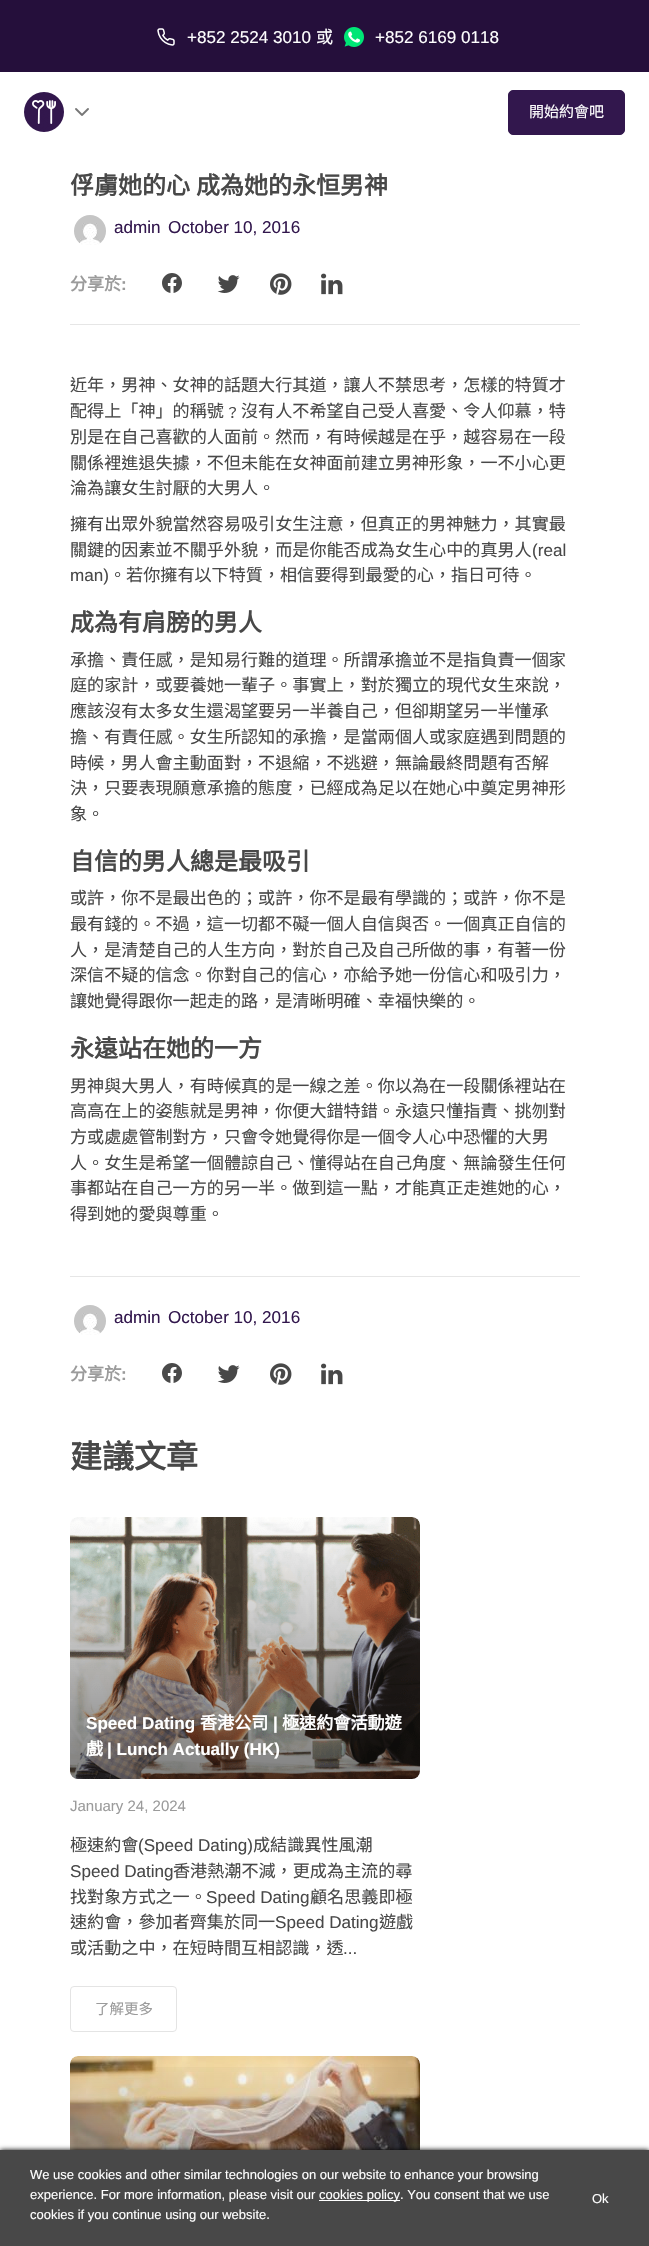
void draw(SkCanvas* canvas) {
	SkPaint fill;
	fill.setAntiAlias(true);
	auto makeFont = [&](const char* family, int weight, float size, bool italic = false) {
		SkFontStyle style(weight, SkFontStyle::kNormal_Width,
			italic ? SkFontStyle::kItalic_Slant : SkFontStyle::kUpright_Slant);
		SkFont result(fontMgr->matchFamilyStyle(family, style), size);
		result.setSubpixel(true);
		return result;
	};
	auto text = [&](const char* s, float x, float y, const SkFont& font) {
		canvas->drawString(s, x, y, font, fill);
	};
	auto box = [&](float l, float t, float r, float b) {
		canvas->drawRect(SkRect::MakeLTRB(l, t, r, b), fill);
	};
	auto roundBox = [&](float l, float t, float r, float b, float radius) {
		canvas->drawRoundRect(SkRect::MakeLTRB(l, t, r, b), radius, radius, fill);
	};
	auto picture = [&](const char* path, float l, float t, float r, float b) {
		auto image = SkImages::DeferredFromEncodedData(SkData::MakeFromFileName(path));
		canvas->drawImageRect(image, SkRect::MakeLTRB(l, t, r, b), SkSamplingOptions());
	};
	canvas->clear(0xFFFFFFFF);
	fill.setColor(0xFF250F3B);
	box(0, 0, 649, 72);
	picture("image0.png", 157, 28, 175, 46);
	picture("image1.png", 344, 27, 364, 47);
	picture("image2.png", 24, 92, 89, 132);
	fill.setColor(0xFF32174D);
	canvas->drawRoundRect(SkRect::MakeLTRB(508.5f, 90.5f, 624.5f, 134.5f), 4.5f, 4.5f, fill);
	fill.setStyle(SkPaint::kStroke_Style);
	fill.setStrokeWidth(1);
	canvas->drawRoundRect(SkRect::MakeLTRB(508.5f, 90.5f, 624.5f, 134.5f), 4.5f, 4.5f, fill);
	picture("image3.png", 74, 215, 106, 245);
	picture("image4.png", 162, 273, 182, 293);
	picture("image5.png", 217, 275, 240, 293);
	picture("image6.png", 270, 273, 292, 295);
	picture("image7.png", 321, 273, 343, 295);
	fill.setStyle(SkPaint::kFill_Style);
	fill.setColor(0xFFE6E6E6);
	box(70, 324, 580, 325);
	box(70, 1276, 580, 1277);
	picture("image3.png", 74, 1305, 106, 1335);
	picture("image4.png", 162, 1363, 182, 1383);
	picture("image5.png", 217, 1365, 240, 1383);
	picture("image6.png", 270, 1363, 292, 1385);
	picture("image7.png", 321, 1363, 343, 1385);
	picture("image8.png", 70, 1517, 420, 1779);
	{
		const SkColor colors[] = {0x00000000, 0x80000000};
		const float stops[] = {0, 1};
		const SkPoint ends[] = {{245, 1517}, {245, 1779}};
		fill.setShader(SkGradientShader::MakeLinear(ends, colors, stops, 2, SkTileMode::kClamp));
		fill.setAlpha(255);
	}
	roundBox(70, 1517, 420, 1779, 8);
	fill.setStyle(SkPaint::kStroke_Style);
	fill.setShader(nullptr);
	fill.setColor(0xFFE4E4E4);
	canvas->drawRoundRect(SkRect::MakeLTRB(70.5f, 1986.5f, 176.5f, 2031.5f), 3.5f, 3.5f, fill);
	picture("image9.png", 70, 2056, 420, 2150);
	fill.setStyle(SkPaint::kFill_Style);
	{
		const SkColor colors[] = {0x00000000, 0x80000000};
		const float stops[] = {0, 1};
		const SkPoint ends[] = {{245, 2056}, {245, 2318}};
		fill.setShader(SkGradientShader::MakeLinear(ends, colors, stops, 2, SkTileMode::kClamp));
		fill.setAlpha(255);
	}
	box(70, 2067, 420, 2150);
	fill.setShader(nullptr);
	fill.setColor(0xFF000000);
	fill.setMaskFilter(SkMaskFilter::MakeBlur(kNormal_SkBlurStyle, 2.5f));
	canvas->drawRect(SkRect::MakeLTRB(0, 2150, 649, 2246), fill);
	fill.setMaskFilter(nullptr);
	fill.setColor(0xFF484848);
	box(0, 2150, 649, 2246);
	fill.setColor(0xFFFFFFFF);
	box(319, 2200, 400, 2201);
	auto font1 = makeFont("Liberation Sans", 400, 17.1f);
	text("+852 2524 3010", 187, 43, font1);
	auto font2 = makeFont("Noto Sans CJK HK", 400, 17.1f);
	text("或", 316, 43, font2);
	text("+852 6169 0118", 375, 43, font1);
	auto font3 = makeFont("Noto Sans CJK HK", 400, 15);
	text("開始約會吧", 529, 117, font3);
	auto font4 = makeFont("Noto Sans CJK HK", 700, 24);
	fill.setColor(0xFF484848);
	text("俘虜她的心", 70, 194, font4);
	text("成為她的永恒男神", 196, 194, font4);
	fill.setColor(0xFF32174D);
	text("admin", 114, 233, font1);
	text("October 10, 2016", 168, 233, font1);
	auto font5 = makeFont("Noto Sans CJK HK", 700, 17.1f);
	fill.setColor(0xFF9B9B9B);
	text("分享於", 70, 290, font5);
	auto font6 = makeFont("Liberation Sans", 700, 17.1f);
	text(":", 121, 290, font6);
	fill.setColor(0xFF484848);
	text("近年，男神、女神的話題大行其道，讓人不禁思考，怎樣的特質才", 70, 391, font2);
	text("配得上「神」的稱號﹖沒有人不希望自己受人喜愛、令人仰慕，特", 70, 417, font2);
	text("別是在自己喜歡的人面前。然而，有時候越是在乎，越容易在一段", 70, 443, font2);
	text("關係裡進退失據，不但未能在女神面前建立男神形象，一不小心更", 70, 469, font2);
	text("淪為讓女生討厭的大男人。", 70, 494, font2);
	text("擁有出眾外貌當然容易吸引女生注意，但真正的男神魅力，其實最", 70, 530, font2);
	text("關鍵的因素並不關乎外貌，而是你能否成為女生心中的真男人", 70, 556, font2);
	text("(real", 532, 556, font1);
	text("man)", 70, 581, font1);
	text("。若你擁有以下特質，相信要得到最愛的心，指日可待。", 109, 581, font2);
	text("成為有肩膀的男人", 70, 631, font4);
	text("承擔、責任感，是知易行難的道理。所謂承擔並不是指負責一個家", 70, 666, font2);
	text("庭的家計，或要養她一輩子。事實上，對於獨立的現代女生來說，", 70, 691, font2);
	text("應該沒有太多女生還渴望要另一半養自己，但卻期望另一半懂承", 70, 717, font2);
	text("擔、有責任感。女生所認知的承擔，是當兩個人或家庭遇到問題的", 70, 743, font2);
	text("時候，男人會主動面對，不退縮，不逃避，無論最終問題有否解", 70, 769, font2);
	text("決，只要表現願意承擔的態度，已經成為足以在她心中奠定男神形", 70, 794, font2);
	text("象。", 70, 820, font2);
	text("自信的男人總是最吸引", 70, 870, font4);
	text("或許，你不是最出色的；或許，你不是最有學識的；或許，你不是", 70, 904, font2);
	text("最有錢的。不過，這一切都不礙一個人自信與否。一個真正自信的", 70, 930, font2);
	text("人，是清楚自己的人生方向，對於自己及自己所做的事，有著一份", 70, 956, font2);
	text("深信不疑的信念。你對自己的信心，亦給予她一份信心和吸引力，", 70, 981, font2);
	text("讓她覺得跟你一起走的路，是清晰明確、幸福快樂的。", 70, 1007, font2);
	text("永遠站在她的一方", 70, 1057, font4);
	text("男神與大男人，有時候真的是一線之差。你以為在一段關係裡站在", 70, 1092, font2);
	text("高高在上的姿態就是男神，你便大錯特錯。永遠只懂指責、挑刎對", 70, 1117, font2);
	text("方或處處管制對方，只會令她覺得你是一個令人心中恐懼的大男", 70, 1143, font2);
	text("人。女生是希望一個體諒自己、懂得站在自己角度、無論發生任何", 70, 1169, font2);
	text("事都站在自己一方的另一半。做到這一點，才能真正走進她的心，", 70, 1194, font2);
	text("得到她的愛與尊重。", 70, 1220, font2);
	fill.setColor(0xFF32174D);
	text("admin", 114, 1323, font1);
	text("October 10, 2016", 168, 1323, font1);
	fill.setColor(0xFF9B9B9B);
	text("分享於", 70, 1380, font5);
	text(":", 121, 1380, font6);
	auto font7 = makeFont("Noto Sans CJK HK", 700, 32);
	fill.setColor(0xFF484848);
	text("建議文章", 70, 1468, font7);
	fill.setColor(0xFFFFFFFF);
	text("Speed Dating", 86, 1729, font6);
	text("香港公司", 200, 1729, font5);
	text("|", 273, 1729, font6);
	text("極速約會活動遊", 282, 1729, font5);
	text("戲", 86, 1755, font5);
	text("| Lunch Actually (HK)", 107, 1755, font6);
	auto font8 = makeFont("Liberation Sans", 400, 15);
	fill.setColor(0xFF9B9B9B);
	text("January 24, 2024", 70, 1811, font8);
	fill.setColor(0xFF484848);
	text("極速約會", 70, 1851, font2);
	text("(Speed Dating)", 138, 1851, font1);
	text("成結識異性風潮", 253, 1851, font2);
	text("Speed Dating", 70, 1877, font1);
	text("香港熱潮不減，更成為主流的尋", 173, 1877, font2);
	text("找對象方式之一。", 70, 1903, font2);
	text("Speed Dating", 206, 1903, font1);
	text("顧名思義即極", 310, 1903, font2);
	text("速約會，參加者齊集於同一", 70, 1928, font2);
	text("Speed Dating", 275, 1928, font1);
	text("遊戲", 379, 1928, font2);
	text("或活動之中，在短時間互相認識，透", 70, 1954, font2);
	text("...", 343, 1954, font1);
	auto font9 = makeFont("Noto Sans CJK HK", 400, 14.5f);
	fill.setColor(0xFF9B9B9B);
	text("了解更多", 95, 2014, font9);
	auto font10 = makeFont("Liberation Sans", 400, 13);
	fill.setColor(0xFFFFFFFF);
	text("We use cookies and other similar technologies on our website to enhance your browsing", 30, 2179, font10);
	text("experience. For more information, please visit our", 30, 2199, font10);
	text("cookies policy. You consent that we use", 319, 2199, font10);
	text("cookies if you continue using our website.", 30, 2219, font10);
	text("Ok", 592, 2203, font10);
}
